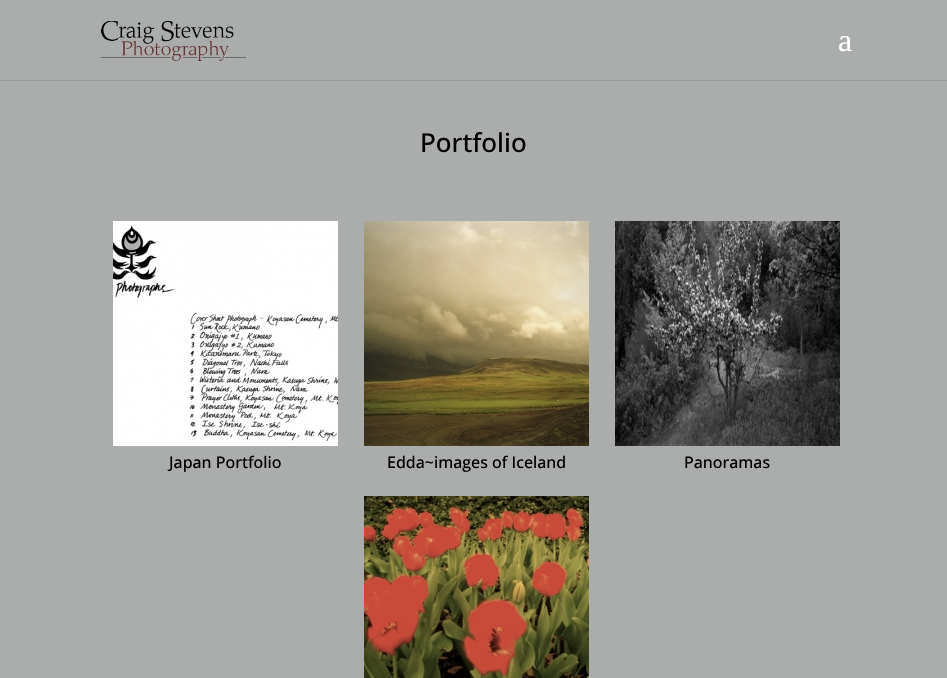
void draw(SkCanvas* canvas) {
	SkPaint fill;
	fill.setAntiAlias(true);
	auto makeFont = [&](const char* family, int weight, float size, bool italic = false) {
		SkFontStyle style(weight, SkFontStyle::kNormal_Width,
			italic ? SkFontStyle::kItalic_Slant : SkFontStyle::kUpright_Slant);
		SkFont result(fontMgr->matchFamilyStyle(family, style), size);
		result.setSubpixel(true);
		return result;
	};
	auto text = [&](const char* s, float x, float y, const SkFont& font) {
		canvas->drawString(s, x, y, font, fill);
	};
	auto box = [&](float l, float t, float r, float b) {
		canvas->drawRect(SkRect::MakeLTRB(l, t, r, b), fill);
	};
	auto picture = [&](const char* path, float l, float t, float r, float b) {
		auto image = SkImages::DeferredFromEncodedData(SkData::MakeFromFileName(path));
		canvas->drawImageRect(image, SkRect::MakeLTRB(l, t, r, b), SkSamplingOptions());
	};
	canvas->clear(0xFFABADAC);
	fill.setColor(0xFF9A9C9B);
	box(0, 80, 947, 81);
	picture("image0.png", 100, 18, 246, 62);
	picture("image1.png", 113, 221, 338, 446);
	picture("image2.png", 364, 221, 589, 446);
	picture("image3.png", 615, 221, 840, 446);
	picture("image4.png", 364, 496, 589, 678);
	auto font1 = makeFont("Liberation Serif", 400, 32);
	fill.setColor(0xFFFFFFFF);
	text("a", 838, 51, font1);
	auto font2 = makeFont("Open Sans", 500, 26);
	fill.setColor(0xFF000000);
	text("Portfolio", 420, 152, font2);
	auto font3 = makeFont("Open Sans", 500, 16);
	text("Japan Portfolio", 169, 468, font3);
	text("Edda~images of Iceland", 387, 468, font3);
	text("Panoramas", 684, 468, font3);
}
